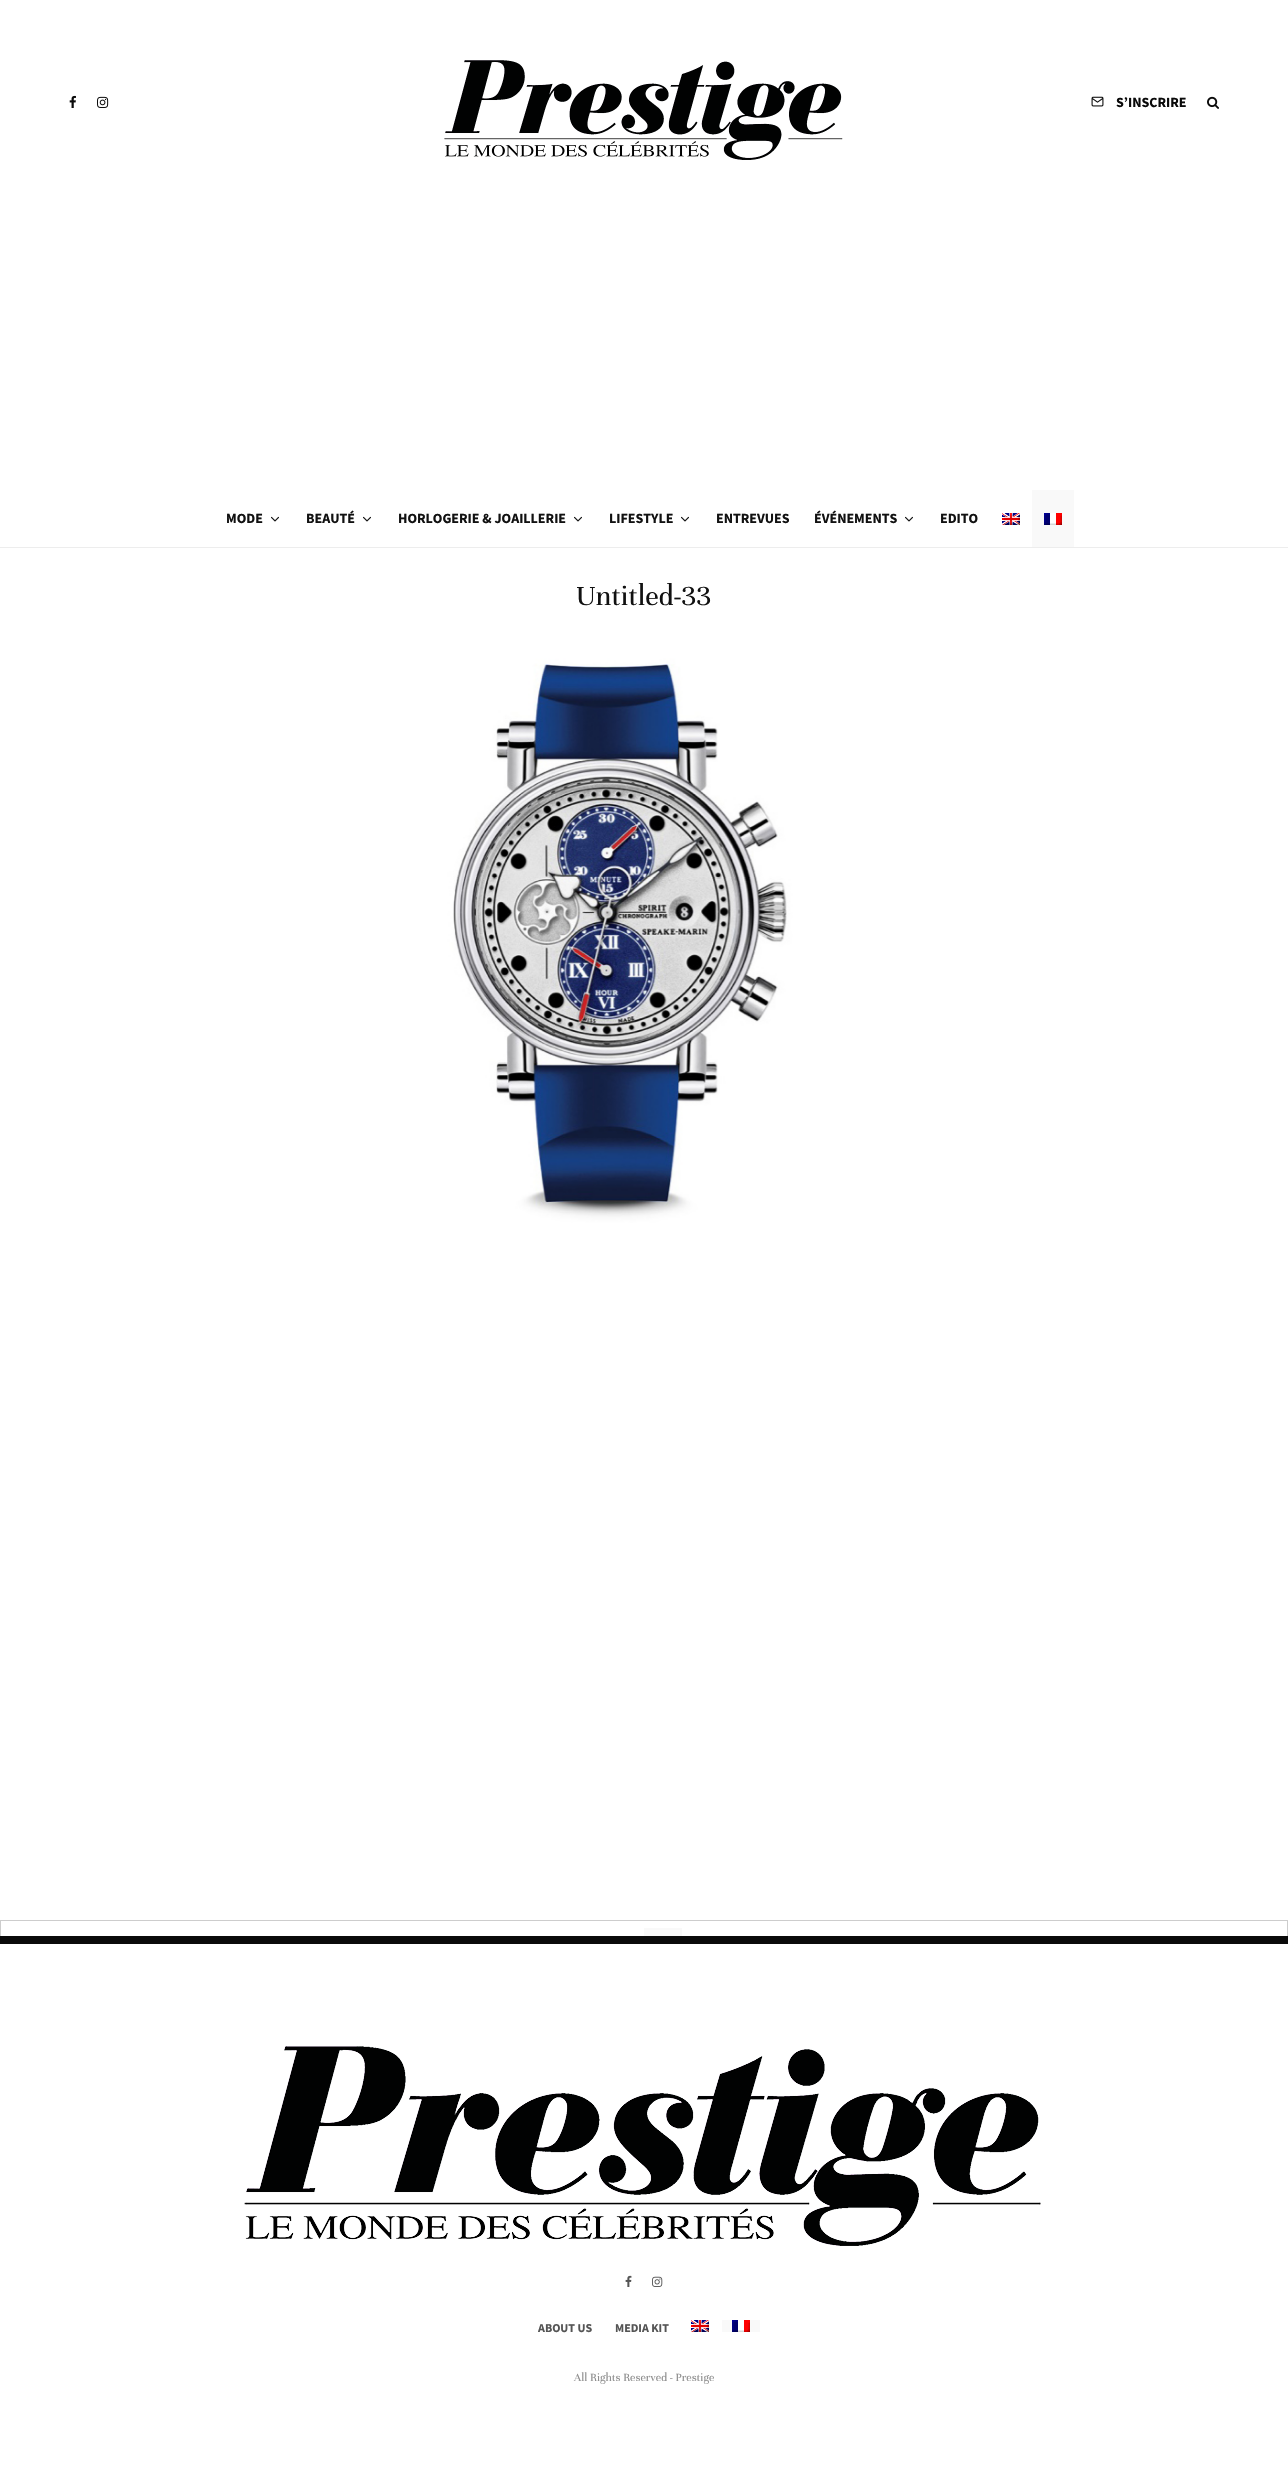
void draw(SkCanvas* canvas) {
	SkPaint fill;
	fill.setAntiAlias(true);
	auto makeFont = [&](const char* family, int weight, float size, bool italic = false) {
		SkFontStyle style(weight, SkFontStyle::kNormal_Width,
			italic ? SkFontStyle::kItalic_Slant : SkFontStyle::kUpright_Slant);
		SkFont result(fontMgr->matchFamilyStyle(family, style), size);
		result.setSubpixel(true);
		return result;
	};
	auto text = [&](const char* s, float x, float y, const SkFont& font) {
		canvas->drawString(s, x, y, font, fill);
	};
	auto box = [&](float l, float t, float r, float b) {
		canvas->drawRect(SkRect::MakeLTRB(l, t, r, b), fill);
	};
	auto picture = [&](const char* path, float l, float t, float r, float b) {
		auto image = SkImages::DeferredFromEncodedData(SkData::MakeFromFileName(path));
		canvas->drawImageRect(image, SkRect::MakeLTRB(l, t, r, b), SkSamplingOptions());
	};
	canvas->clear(0xFFFFFFFF);
	picture("image0.png", 69, 95, 76, 108);
	picture("image1.png", 97, 96, 109, 108);
	picture("image2.png", 444, 60, 843, 160);
	picture("image3.png", 1091, 96, 1104, 107);
	picture("image4.png", 1207, 96, 1219, 109);
	fill.setColor(0xFFEDEDED);
	box(0, 547, 1288, 548);
	picture("image5.png", 271, 516, 279, 522);
	picture("image5.png", 363, 516, 371, 522);
	picture("image5.png", 574, 516, 582, 522);
	picture("image5.png", 681, 516, 689, 522);
	picture("image5.png", 905, 516, 913, 522);
	picture("image6.png", 1002, 513, 1020, 525);
	fill.setColor(0xFFF9F9F9);
	box(1032, 490, 1074, 547);
	picture("image7.png", 1044, 513, 1062, 525);
	picture("image8.png", 89, 644, 1199, 1320);
	fill.setStyle(SkPaint::kStroke_Style);
	fill.setStrokeWidth(1);
	fill.setColor(0xFFCDCDCD);
	canvas->drawRect(SkRect::MakeLTRB(0.5f, 1920.5f, 1287.5f, 1962.5f), fill);
	fill.setStyle(SkPaint::kFill_Style);
	fill.setColor(0xFFFFFFFF);
	box(0, 1944, 1288, 1963);
	fill.setColor(0xFF0A0A0A);
	box(0, 1936, 1288, 1944);
	picture("image9.png", 244, 2046, 1041, 2246);
	picture("image10.png", 625, 2275, 632, 2287);
	picture("image11.png", 652, 2276, 663, 2287);
	picture("image6.png", 691, 2320, 709, 2332);
	fill.setColor(0xFFF9F9F9);
	box(722, 2320, 760, 2332);
	picture("image7.png", 732, 2320, 750, 2332);
	box(644, 1928, 682, 1936);
	auto font1 = makeFont("Source Sans Pro", 700, 14);
	fill.setColor(0xFF0A0A0A);
	text("S’INSCRIRE", 1116, 107, font1);
	fill.setColor(0xFF111111);
	text("MODE", 226, 523, font1);
	text("BEAUTÉ", 306, 523, font1);
	text("HORLOGERIE & JOAILLERIE", 398, 523, font1);
	text("LIFESTYLE", 609, 523, font1);
	text("ENTREVUES", 716, 523, font1);
	text("ÉVÉNEMENTS", 814, 523, font1);
	text("EDITO", 940, 523, font1);
	auto font2 = makeFont("Unna", 400, 30);
	text("Untitled-33", 576, 605, font2);
	auto font3 = makeFont("Source Sans Pro", 700, 12);
	fill.setColor(0xFF555555);
	text("ABOUT US", 538, 2332, font3);
	text("MEDIA KIT", 615, 2332, font3);
	auto font4 = makeFont("Unna", 400, 12);
	fill.setColor(0xFF8E8E8E);
	text("All Rights Reserved - Prestige", 574, 2381, font4);
}
